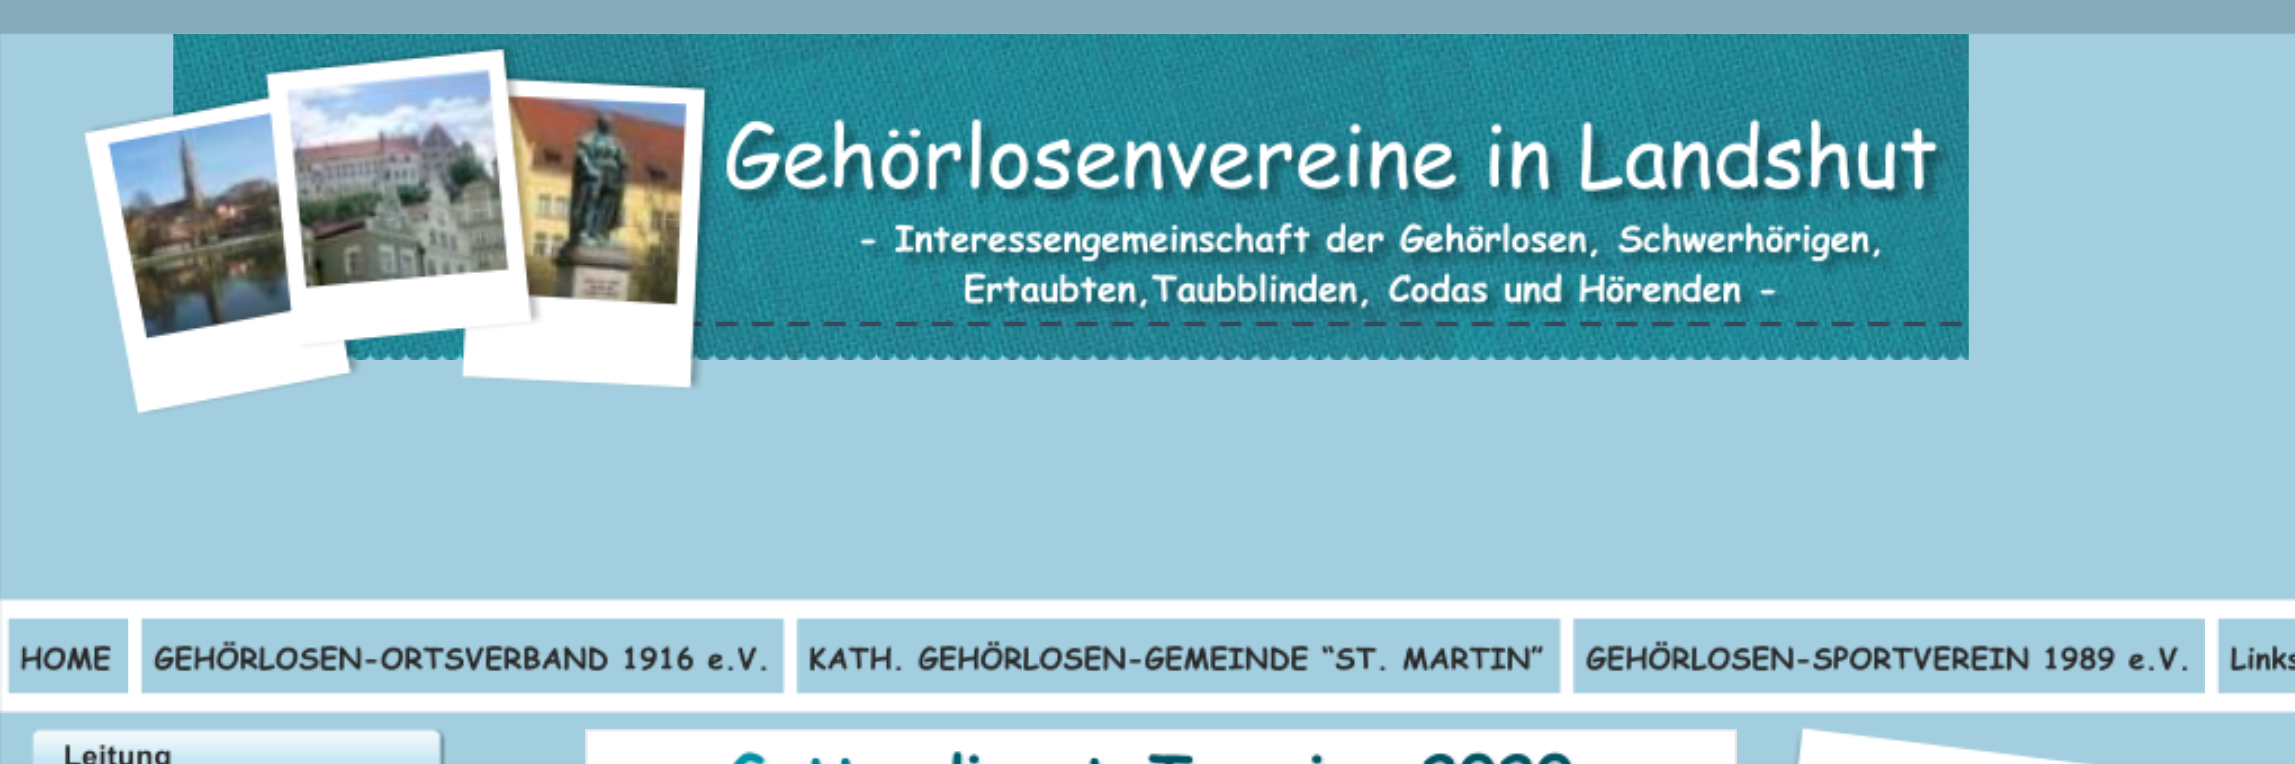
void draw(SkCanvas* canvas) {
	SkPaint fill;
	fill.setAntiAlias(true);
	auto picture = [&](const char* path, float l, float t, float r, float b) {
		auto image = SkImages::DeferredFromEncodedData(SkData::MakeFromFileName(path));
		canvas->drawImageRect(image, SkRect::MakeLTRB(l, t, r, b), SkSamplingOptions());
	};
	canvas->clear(0xFF86ABBA);
	picture("image0.png", 0, 33, 2295, 764);
	picture("image1.png", 173, 33, 1969, 360);
	picture("image4.png", 463, 321, 1963, 327);
	picture("image2.png", 83, 44, 715, 415);
	picture("image3.png", 726, 118, 1950, 321);
	picture("image14.png", 0, 598, 2295, 714);
	picture("image5.png", 6, 616, 129, 695);
	picture("image6.png", 139, 616, 786, 695);
	picture("image7.png", 796, 616, 1562, 695);
	picture("image8.png", 1572, 616, 2205, 695);
	picture("image9.png", 2216, 616, 2295, 695);
	picture("image10.png", 31, 728, 446, 764);
	picture("image11.png", 585, 729, 1737, 764);
	picture("image12.png", 1793, 726, 2093, 764);
	picture("image13.png", 732, 751, 1576, 764);
}
